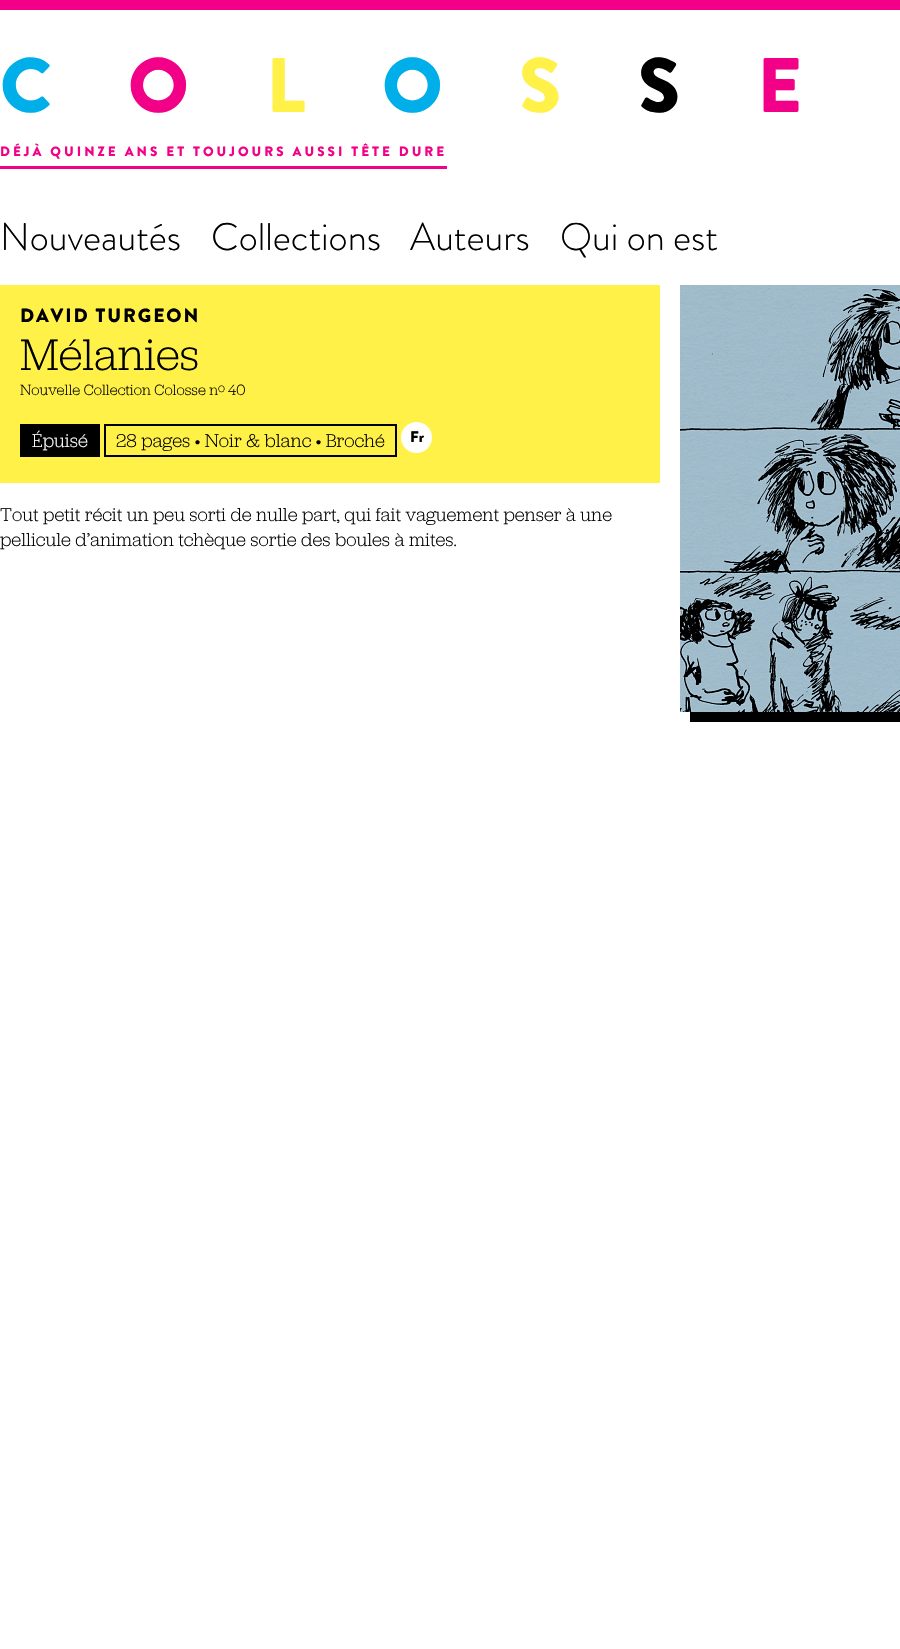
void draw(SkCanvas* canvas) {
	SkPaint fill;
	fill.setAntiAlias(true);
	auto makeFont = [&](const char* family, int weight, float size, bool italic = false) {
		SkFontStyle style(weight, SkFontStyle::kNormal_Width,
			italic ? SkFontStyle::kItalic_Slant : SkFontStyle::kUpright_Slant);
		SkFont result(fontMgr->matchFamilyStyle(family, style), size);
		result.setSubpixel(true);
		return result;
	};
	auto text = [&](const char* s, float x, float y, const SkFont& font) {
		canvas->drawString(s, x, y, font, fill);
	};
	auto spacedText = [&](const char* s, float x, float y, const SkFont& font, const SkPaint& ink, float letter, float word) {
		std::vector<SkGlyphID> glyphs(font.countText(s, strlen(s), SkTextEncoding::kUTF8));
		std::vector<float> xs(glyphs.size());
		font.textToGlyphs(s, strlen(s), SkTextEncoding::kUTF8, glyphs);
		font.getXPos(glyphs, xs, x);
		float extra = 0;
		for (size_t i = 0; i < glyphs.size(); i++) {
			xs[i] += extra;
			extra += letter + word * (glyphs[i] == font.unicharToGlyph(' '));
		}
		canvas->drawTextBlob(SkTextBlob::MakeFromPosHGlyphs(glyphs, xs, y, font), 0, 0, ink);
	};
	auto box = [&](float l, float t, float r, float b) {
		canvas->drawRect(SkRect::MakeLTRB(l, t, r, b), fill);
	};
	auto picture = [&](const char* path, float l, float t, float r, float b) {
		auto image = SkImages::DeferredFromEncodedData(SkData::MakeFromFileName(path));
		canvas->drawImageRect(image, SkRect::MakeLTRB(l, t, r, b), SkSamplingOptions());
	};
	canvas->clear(0xFFFFFFFF);
	fill.setColor(0xFFF30088);
	box(0, 0, 900, 10);
	box(0, 166, 447, 169);
	fill.setColor(0xFFFFF148);
	box(0, 285, 660, 483);
	fill.setColor(0xFF000000);
	box(20, 424, 100, 457);
	fill.setStyle(SkPaint::kStroke_Style);
	fill.setStrokeWidth(2);
	canvas->drawRect(SkRect::MakeLTRB(105, 425, 396, 456), fill);
	fill.setStyle(SkPaint::kFill_Style);
	fill.setColor(0xFFFFFFFF);
	canvas->drawCircle(416.5f, 437.5f, 15.5f, fill);
	picture("image0.png", 680, 285, 900, 712);
	fill.setColor(0xFF000000);
	canvas->drawPath(SkPathBuilder().moveTo(690, 712).lineTo(690, 722).lineTo(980, 722).cubicTo(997, 722, 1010, 709, 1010, 692).lineTo(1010, 325).cubicTo(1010, 314, 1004, 305, 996, 299).cubicTo(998, 304, 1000, 309, 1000, 315).lineTo(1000, 682).cubicTo(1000, 699, 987, 712, 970, 712).close().detach(), fill);
	auto font1 = makeFont("Brandon Grotesque", 900, 77);
	fill.setColor(0xFF00AFE9);
	text("C", 0, 112, font1);
	fill.setColor(0xFFF30088);
	text("O", 128, 112, font1);
	fill.setColor(0xFFFFF148);
	text("L", 266, 112, font1);
	fill.setColor(0xFF00AFE9);
	text("O", 382, 112, font1);
	fill.setColor(0xFFFFF148);
	text("S", 519, 112, font1);
	fill.setColor(0xFF000000);
	text("S", 638, 112, font1);
	fill.setColor(0xFFF30088);
	text("E", 757, 112, font1);
	auto font2 = makeFont("Brandon Grotesque", 900, 13.45f);
	spacedText("DÉJÀ QUINZE ANS ET TOUJOURS AUSSI TÊTE DURE", 0, 156, font2, fill, 3, 0);
	auto font3 = makeFont("Brandon Grotesque", 300, 38.5f);
	fill.setColor(0xFF000000);
	text("Nouveautés", 0, 250, font3);
	text("Collections", 211, 250, font3);
	text("Auteurs", 410, 250, font3);
	text("Qui on est", 560, 250, font3);
	auto font4 = makeFont("Brandon Grotesque", 900, 19.2f);
	spacedText("DAVID TURGEON", 20, 322, font4, fill, 1.9f, 0);
	auto font5 = makeFont("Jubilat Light", 300, 46);
	text("Mélanies", 20, 370, font5);
	auto font6 = makeFont("Jubilat Light", 300, 15.4f);
	text("Nouvelle Collection Colosse n", 20, 395, font6);
	auto font7 = makeFont("Jubilat Light", 300, 13);
	text("o", 218, 392, font7);
	text("40", 228, 395, font6);
	auto font8 = makeFont("Jubilat Light", 300, 19.2f);
	fill.setColor(0xFFFFFFFF);
	text("Épuisé", 32, 447, font8);
	fill.setColor(0xFF000000);
	text("28 pages • Noir & blanc • Broché", 116, 447, font8);
	auto font9 = makeFont("Brandon Grotesque", 900, 15.4f);
	text("Fr", 410, 442, font9);
	text("Tout petit récit un peu sorti de nulle part, qui fait vaguement penser à une", 0, 521, font8);
	text("pellicule d’animation tchèque sortie des boules à mites.", 0, 546, font8);
}
